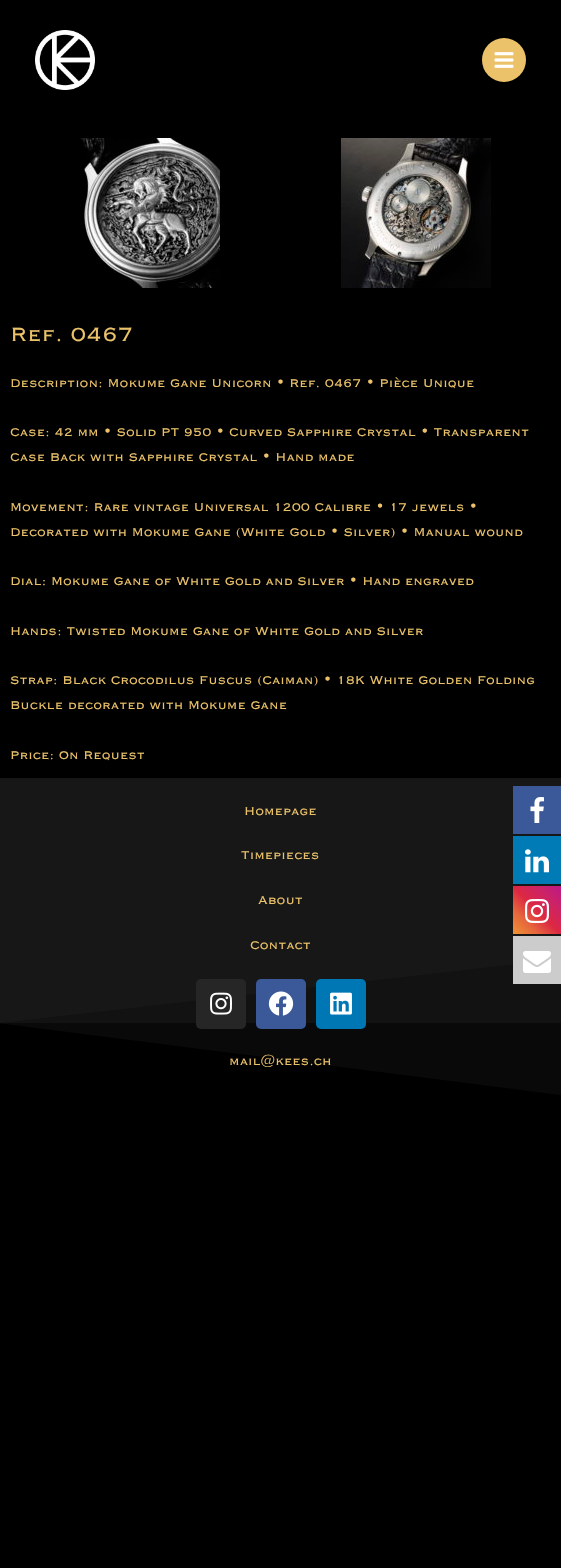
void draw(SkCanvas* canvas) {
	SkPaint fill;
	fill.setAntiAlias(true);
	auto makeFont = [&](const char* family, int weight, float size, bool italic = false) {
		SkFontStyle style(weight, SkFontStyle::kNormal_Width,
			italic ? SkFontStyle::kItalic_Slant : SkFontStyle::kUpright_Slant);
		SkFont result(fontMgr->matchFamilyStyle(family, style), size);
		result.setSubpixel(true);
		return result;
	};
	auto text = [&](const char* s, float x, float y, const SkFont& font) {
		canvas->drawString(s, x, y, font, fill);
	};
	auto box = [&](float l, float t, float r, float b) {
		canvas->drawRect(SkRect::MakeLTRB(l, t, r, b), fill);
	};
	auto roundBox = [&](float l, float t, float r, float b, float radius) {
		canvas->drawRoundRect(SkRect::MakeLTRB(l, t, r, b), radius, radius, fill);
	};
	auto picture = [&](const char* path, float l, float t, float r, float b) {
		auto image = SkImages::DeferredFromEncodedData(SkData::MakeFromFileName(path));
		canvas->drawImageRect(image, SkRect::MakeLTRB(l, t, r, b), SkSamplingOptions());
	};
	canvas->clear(0xFF000000);
	picture("image0.png", 35, 30, 95, 90);
	fill.setColor(0xFFEBC269);
	canvas->drawCircle(504, 60, 22, fill);
	picture("image1.png", 494, 52, 514, 68);
	picture("image2.png", 80, 138, 220, 288);
	picture("image3.png", 341, 138, 491, 288);
	fill.setColor(0xFF171718);
	box(0, 778, 561, 1023);
	fill.setColor(0xFF0C0C0C);
	box(0, 1023, 561, 1095);
	fill.setColor(0xFF000000);
	canvas->drawPath(SkPathBuilder().moveTo(561, 1095).lineTo(-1, 1095).lineTo(-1, 1023).close().detach(), fill);
	fill.setColor(0x40000000);
	canvas->drawPath(SkPathBuilder().moveTo(-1, 1095).lineTo(561, 1095).lineTo(561, 959).lineTo(-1, 1023).close().detach(), fill);
	fill.setColor(0xFF262626);
	roundBox(196, 979, 246, 1029, 5);
	picture("image4.png", 210, 992, 232, 1015);
	fill.setColor(0xFF3B5998);
	roundBox(256, 979, 306, 1029, 5);
	picture("image5.png", 268, 991, 294, 1016);
	fill.setColor(0xFF0077B5);
	roundBox(316, 979, 366, 1029, 5);
	picture("image6.png", 330, 992, 352, 1015);
	fill.setColor(0xFF3B5998);
	box(513, 786, 561, 834);
	picture("image7.png", 530, 797, 544, 823);
	fill.setColor(0xFF007BB6);
	box(513, 836, 561, 884);
	picture("image8.png", 525, 849, 549, 873);
	{
		const SkColor colors[] = {0xFFF09433, 0xFFE6683C, 0xFFDC2743, 0xFFCC2366, 0xFFBC1888};
		const float stops[] = {0, 0.25f, 0.5f, 0.75f, 1};
		const SkPoint ends[] = {{513, 934}, {561, 886}};
		fill.setShader(SkGradientShader::MakeLinear(ends, colors, stops, 5, SkTileMode::kClamp));
		fill.setAlpha(255);
	}
	box(513, 886, 561, 934);
	picture("image9.png", 525, 899, 549, 923);
	fill.setShader(nullptr);
	fill.setColor(0xFFCCCCCC);
	box(513, 936, 561, 984);
	picture("image10.png", 523, 951, 551, 973);
	auto font1 = makeFont("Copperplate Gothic", 400, 25);
	fill.setColor(0xFFEBC269);
	text("Ref. 0467", 10, 341, font1);
	auto font2 = makeFont("Copperplate Gothic", 400, 14.6f);
	text("Description: Mokume Gane Unicorn • Ref. 0467 • Pièce Unique", 10, 387, font2);
	text("Case: 42 mm • Solid PT 950 • Curved Sapphire Crystal • Transparent", 10, 436, font2);
	text("Case Back with Sapphire Crystal • Hand made", 10, 461, font2);
	text("Movement: Rare vintage Universal 1200 Calibre • 17 jewels •", 10, 511, font2);
	text("Decorated with Mokume Gane (White Gold • Silver) • Manual wound", 10, 536, font2);
	text("Dial: Mokume Gane of White Gold and Silver • Hand engraved", 10, 585, font2);
	text("Hands: Twisted Mokume Gane of White Gold and Silver", 10, 635, font2);
	text("Strap: Black Crocodilus Fuscus (Caiman) • 18K White Golden Folding", 10, 684, font2);
	text("Buckle decorated with Mokume Gane", 10, 709, font2);
	text("Price: On Request", 10, 759, font2);
	text("Homepage", 244, 815, font2);
	text("Timepieces", 241, 859, font2);
	text("About", 258, 904, font2);
	text("Contact", 250, 949, font2);
	text("mail@kees.ch", 229, 1065, font2);
}
